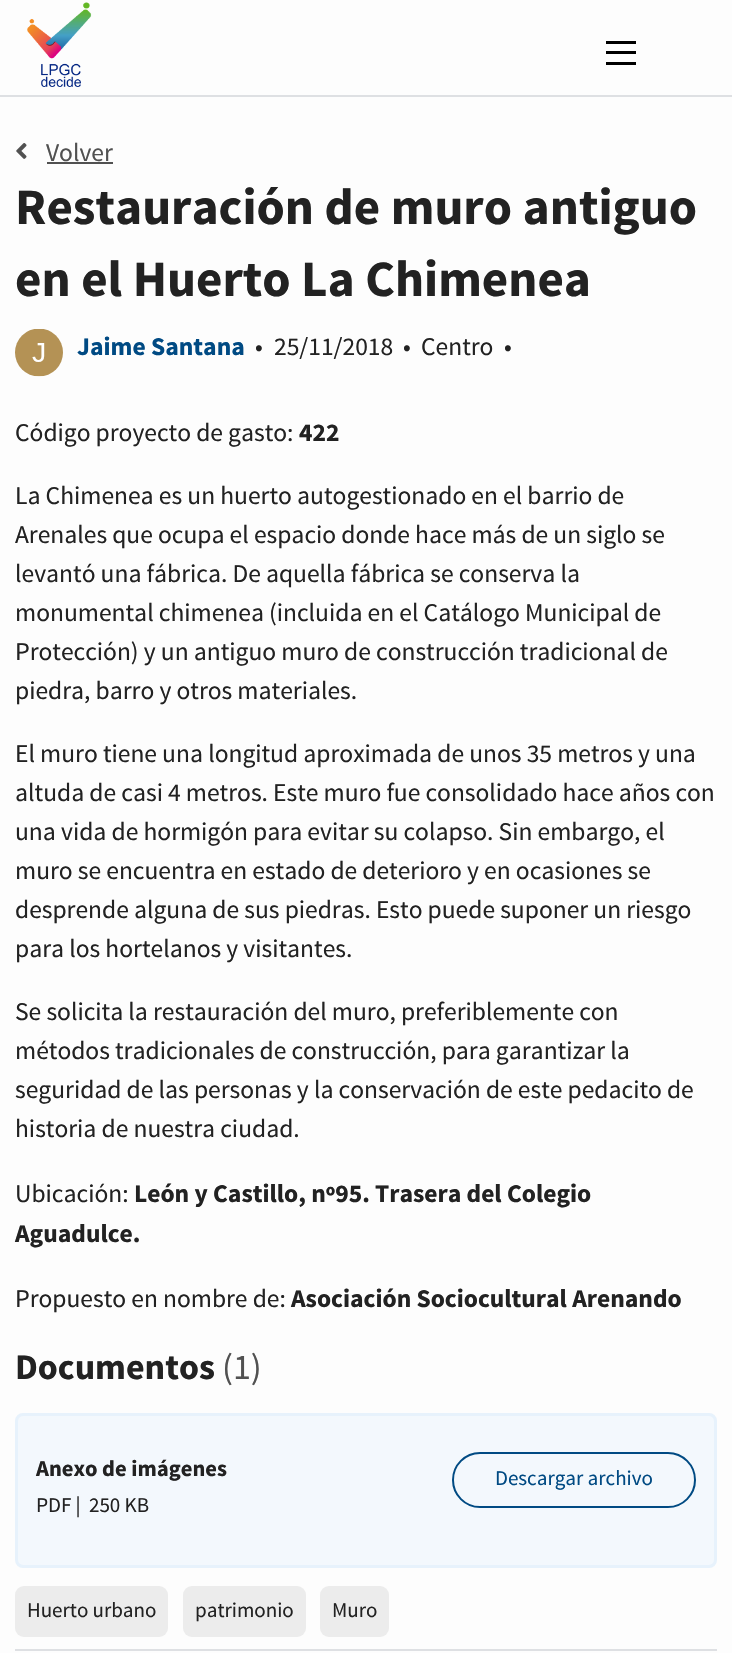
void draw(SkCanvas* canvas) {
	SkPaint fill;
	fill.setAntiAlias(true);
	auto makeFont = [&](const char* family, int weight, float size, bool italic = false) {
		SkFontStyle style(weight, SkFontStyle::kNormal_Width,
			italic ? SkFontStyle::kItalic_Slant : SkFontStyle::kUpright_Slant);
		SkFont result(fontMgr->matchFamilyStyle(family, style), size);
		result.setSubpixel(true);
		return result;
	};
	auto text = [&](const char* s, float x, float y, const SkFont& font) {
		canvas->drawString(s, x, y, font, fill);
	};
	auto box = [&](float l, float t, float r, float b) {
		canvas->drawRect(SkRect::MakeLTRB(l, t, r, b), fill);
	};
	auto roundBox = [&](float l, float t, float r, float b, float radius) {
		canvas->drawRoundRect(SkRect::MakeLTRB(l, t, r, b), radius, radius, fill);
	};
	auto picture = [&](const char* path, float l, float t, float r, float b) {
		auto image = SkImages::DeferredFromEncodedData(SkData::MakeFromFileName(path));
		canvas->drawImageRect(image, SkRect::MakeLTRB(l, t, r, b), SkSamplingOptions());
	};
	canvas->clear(0xFFFDFDFD);
	picture("image0.png", 27, 2, 92, 87);
	fill.setColor(0xFF000000);
	box(606, 62, 636, 65);
	box(606, 51, 636, 54);
	box(606, 41, 636, 44);
	fill.setColor(0xFFDEE0E3);
	box(0, 95, 732, 97);
	picture("image1.png", 16, 143, 27, 159);
	fill.setColor(0xFF515151);
	box(47, 162, 113, 164);
	picture("image2.png", 15, 329, 63, 377);
	fill.setColor(0xFFF3F8FD);
	canvas->drawRoundRect(SkRect::MakeLTRB(16.5f, 1414.5f, 715.5f, 1566.5f), 6.5f, 6.5f, fill);
	fill.setStyle(SkPaint::kStroke_Style);
	fill.setStrokeWidth(3);
	fill.setColor(0xFFE7F2FC);
	canvas->drawRoundRect(SkRect::MakeLTRB(16.5f, 1414.5f, 715.5f, 1566.5f), 6.5f, 6.5f, fill);
	fill.setStrokeWidth(2);
	fill.setColor(0xFF004A83);
	canvas->drawRoundRect(SkRect::MakeLTRB(453, 1453, 695, 1507), 27, 27, fill);
	fill.setStyle(SkPaint::kFill_Style);
	fill.setColor(0xFFECECEC);
	roundBox(15, 1586, 168, 1637, 9);
	roundBox(183, 1586, 306, 1637, 9);
	roundBox(320, 1586, 389, 1637, 9);
	fill.setColor(0xFFDEE0E3);
	box(15, 1649, 717, 1651);
	auto font1 = makeFont("Source Sans Pro", 400, 25.5f);
	fill.setColor(0xFF515151);
	text("Volver", 46, 161, font1);
	auto font2 = makeFont("Source Sans Pro", 700, 51);
	fill.setColor(0xFF222222);
	text("Restauración de muro antiguo", 15, 224, font2);
	text("en el Huerto La Chimenea", 15, 296, font2);
	auto font3 = makeFont("Source Sans Pro", 700, 25.5f);
	fill.setColor(0xFF004A83);
	text("Jaime Santana", 77, 355, font3);
	fill.setColor(0xFF222222);
	text("•", 255, 355, font1);
	text("25/11/2018", 274, 355, font1);
	text("•", 403, 355, font1);
	text("Centro", 421, 355, font1);
	text("•", 504, 355, font1);
	text("Código proyecto de gasto:", 15, 441, font1);
	text("422", 299, 441, font3);
	text("La Chimenea es un huerto autogestionado en el barrio de", 15, 504, font1);
	text("Arenales que ocupa el espacio donde hace más de un siglo se", 15, 543, font1);
	text("levantó una fábrica. De aquella fábrica se conserva la", 15, 582, font1);
	text("monumental chimenea (incluida en el Catálogo Municipal de", 15, 621, font1);
	text("Protección) y un antiguo muro de construcción tradicional de", 15, 660, font1);
	text("piedra, barro y otros materiales.", 15, 699, font1);
	text("El muro tiene una longitud aproximada de unos 35 metros y una", 15, 762, font1);
	text("altuda de casi 4 metros. Este muro fue consolidado hace años con", 15, 801, font1);
	text("una vida de hormigón para evitar su colapso. Sin embargo, el", 15, 840, font1);
	text("muro se encuentra en estado de deterioro y en ocasiones se", 15, 879, font1);
	text("desprende alguna de sus piedras. Esto puede suponer un riesgo", 15, 918, font1);
	text("para los hortelanos y visitantes.", 15, 957, font1);
	text("Se solicita la restauración del muro, preferiblemente con", 15, 1020, font1);
	text("métodos tradicionales de construcción, para garantizar la", 15, 1059, font1);
	text("seguridad de las personas y la conservación de este pedacito de", 15, 1098, font1);
	text("historia de nuestra ciudad.", 15, 1137, font1);
	text("Ubicación:", 15, 1202, font1);
	text("León y Castillo, nº95. Trasera del Colegio", 134, 1202, font3);
	text("Aguadulce.", 15, 1242, font3);
	text("Propuesto en nombre de:", 15, 1307, font1);
	text("Asociación Sociocultural Arenando", 291, 1307, font3);
	auto font4 = makeFont("Source Sans Pro", 700, 36);
	text("Documentos", 15, 1379, font4);
	auto font5 = makeFont("Source Sans Pro", 400, 36);
	fill.setColor(0xFF515151);
	text("(1)", 222, 1379, font5);
	auto font6 = makeFont("Source Sans Pro", 700, 22.5f);
	fill.setColor(0xFF222222);
	text("Anexo de imágenes", 36, 1476, font6);
	auto font7 = makeFont("Source Sans Pro", 400, 21);
	fill.setColor(0xFF004A83);
	text("Descargar archivo", 495, 1485, font7);
	fill.setColor(0xFF222222);
	text("PDF |", 36, 1512, font7);
	text("250 KB", 89, 1512, font7);
	text("Huerto urbano", 27, 1617, font7);
	text("patrimonio", 195, 1617, font7);
	text("Muro", 332, 1617, font7);
}
